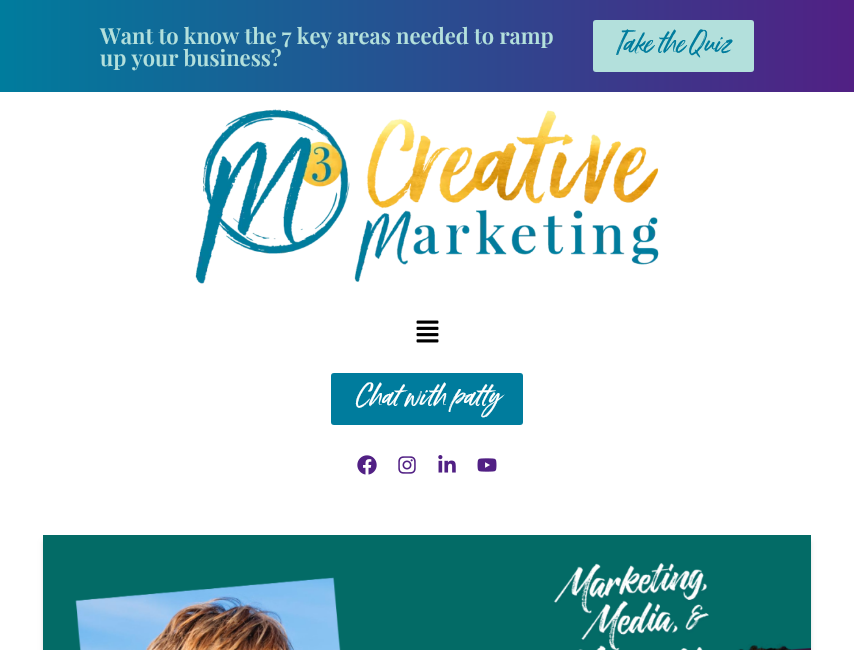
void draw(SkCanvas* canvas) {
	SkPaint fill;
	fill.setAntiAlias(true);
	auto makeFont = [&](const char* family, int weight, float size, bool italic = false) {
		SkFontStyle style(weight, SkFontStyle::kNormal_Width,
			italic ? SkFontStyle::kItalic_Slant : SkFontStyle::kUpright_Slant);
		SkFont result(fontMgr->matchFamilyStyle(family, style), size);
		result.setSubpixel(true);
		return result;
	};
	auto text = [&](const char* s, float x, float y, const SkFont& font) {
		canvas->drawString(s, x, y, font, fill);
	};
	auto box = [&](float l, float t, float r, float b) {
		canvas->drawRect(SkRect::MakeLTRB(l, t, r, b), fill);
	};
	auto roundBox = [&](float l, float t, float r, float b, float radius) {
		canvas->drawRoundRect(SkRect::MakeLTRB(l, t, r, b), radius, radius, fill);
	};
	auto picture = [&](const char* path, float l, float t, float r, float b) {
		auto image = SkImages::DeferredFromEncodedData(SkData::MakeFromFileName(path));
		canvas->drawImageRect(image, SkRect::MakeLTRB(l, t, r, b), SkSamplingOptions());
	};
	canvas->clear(0xFFFFFFFF);
	{
		const SkColor colors[] = {0xFF007C9D, 0xFF512084};
		const float stops[] = {0, 1};
		const SkPoint ends[] = {{0, 46}, {854, 46}};
		fill.setShader(SkGradientShader::MakeLinear(ends, colors, stops, 2, SkTileMode::kClamp));
		fill.setAlpha(255);
	}
	box(0, 0, 854, 92);
	fill.setShader(nullptr);
	fill.setColor(0xFFB3E0DC);
	roundBox(593, 20, 754, 72, 3);
	picture("image0.png", 195, 109, 659, 284);
	picture("image1.png", 416, 320, 439, 343);
	fill.setColor(0xFF007C9D);
	roundBox(331, 373, 523, 425, 3);
	picture("image2.png", 357, 455, 377, 475);
	picture("image3.png", 398, 456, 416, 474);
	picture("image4.png", 438, 455, 456, 473);
	picture("image5.png", 477, 458, 497, 472);
	fill.setColor(0x21000000);
	fill.setMaskFilter(SkMaskFilter::MakeBlur(kNormal_SkBlurStyle, 2));
	canvas->drawRect(SkRect::MakeLTRB(43, 541, 803, 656), fill);
	fill.setMaskFilter(nullptr);
	fill.setMaskFilter(SkMaskFilter::MakeBlur(kNormal_SkBlurStyle, 2));
	canvas->drawRect(SkRect::MakeLTRB(51, 541, 811, 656), fill);
	fill.setMaskFilter(nullptr);
	picture("image6.png", 43, 535, 811, 650);
	auto font1 = makeFont("Playfair Display", 600, 22);
	fill.setColor(0xFFB3E0DC);
	text("Want to know the 7 key areas needed to ramp", 100, 44, font1);
	text("up your business?", 100, 66, font1);
	auto font2 = makeFont("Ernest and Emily", 400, 28, true);
	fill.setColor(0xFF007C9D);
	text("Take the Quiz", 617, 51, font2);
	fill.setColor(0xFFFFFFFF);
	text("Chat with patty", 355, 404, font2);
}
